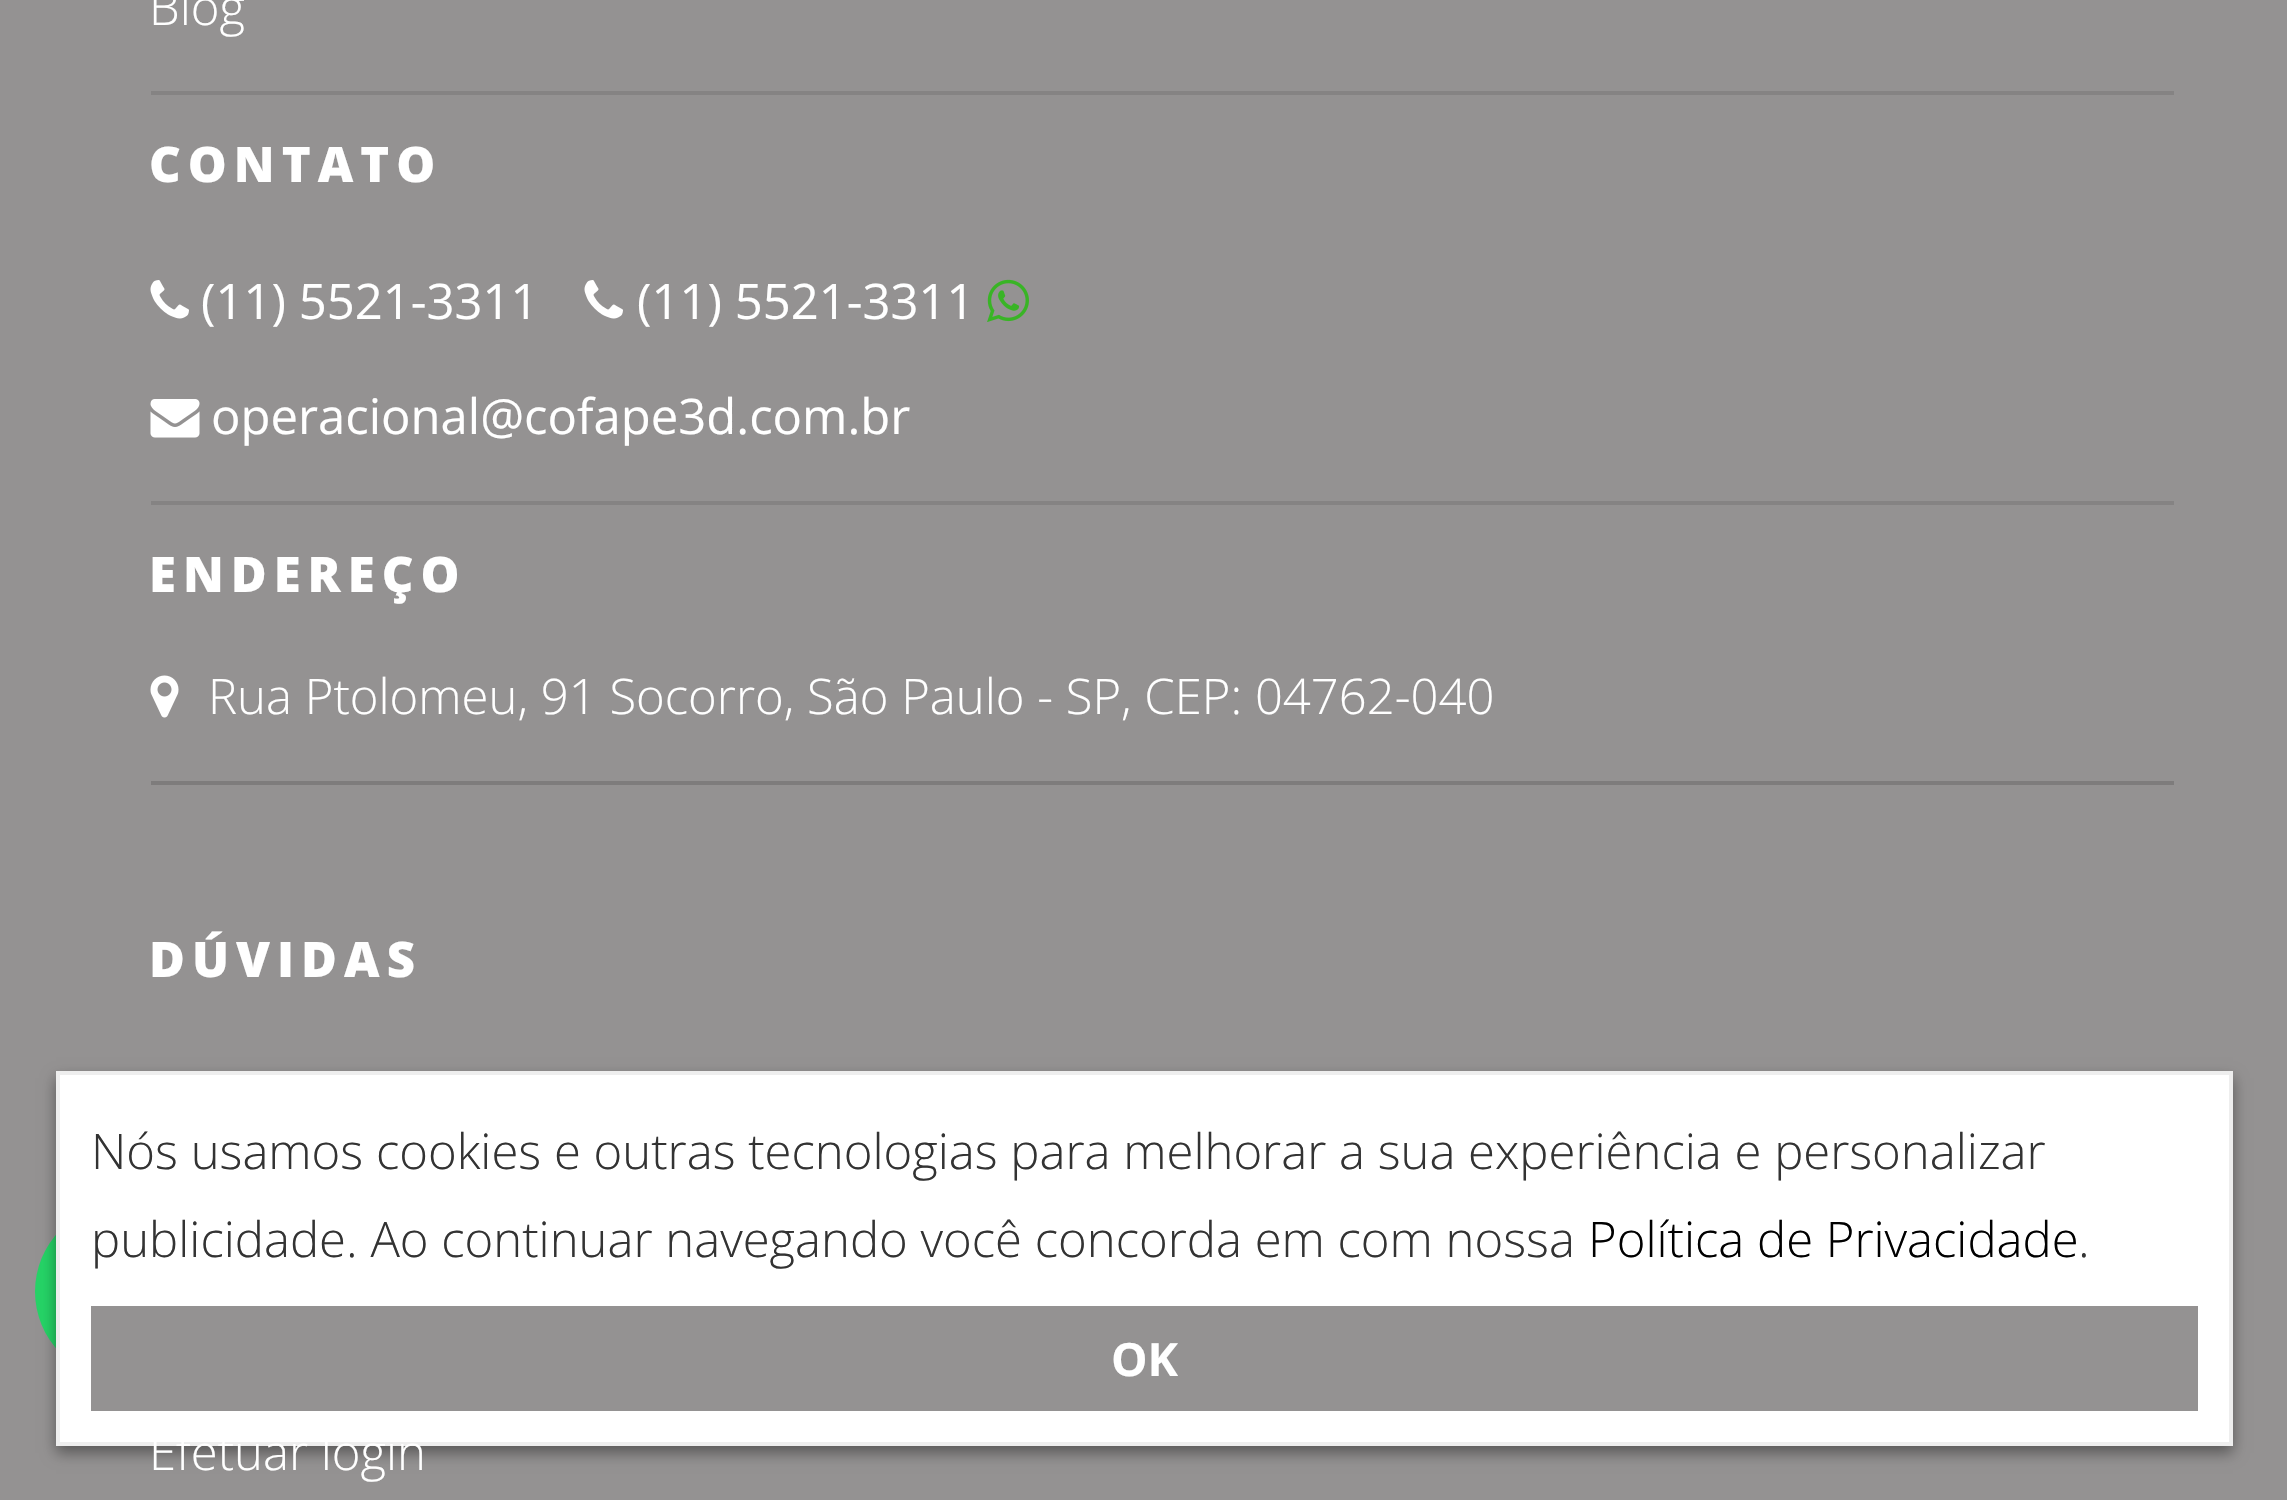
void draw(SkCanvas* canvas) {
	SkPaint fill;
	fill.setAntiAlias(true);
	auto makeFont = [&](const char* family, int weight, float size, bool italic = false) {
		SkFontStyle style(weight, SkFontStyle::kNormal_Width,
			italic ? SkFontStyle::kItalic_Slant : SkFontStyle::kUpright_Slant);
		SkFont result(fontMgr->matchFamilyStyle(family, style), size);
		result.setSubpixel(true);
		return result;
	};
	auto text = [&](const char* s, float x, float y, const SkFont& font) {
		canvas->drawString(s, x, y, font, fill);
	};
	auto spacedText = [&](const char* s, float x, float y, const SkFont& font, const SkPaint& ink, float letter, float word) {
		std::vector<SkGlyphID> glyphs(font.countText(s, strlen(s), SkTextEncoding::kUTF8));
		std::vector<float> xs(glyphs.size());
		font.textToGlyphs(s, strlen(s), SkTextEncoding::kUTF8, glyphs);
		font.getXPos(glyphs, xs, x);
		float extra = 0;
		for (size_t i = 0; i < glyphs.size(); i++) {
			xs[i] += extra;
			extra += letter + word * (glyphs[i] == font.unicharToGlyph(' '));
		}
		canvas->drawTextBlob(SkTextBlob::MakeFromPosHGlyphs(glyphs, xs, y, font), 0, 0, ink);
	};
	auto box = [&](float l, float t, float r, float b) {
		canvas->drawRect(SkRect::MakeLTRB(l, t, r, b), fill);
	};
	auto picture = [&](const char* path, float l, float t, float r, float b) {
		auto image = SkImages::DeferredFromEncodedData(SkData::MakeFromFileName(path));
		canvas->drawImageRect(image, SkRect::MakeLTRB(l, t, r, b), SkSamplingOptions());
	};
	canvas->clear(0xFF949292);
	fill.setColor(0xFF858383);
	box(151, 91, 2174, 95);
	box(151, 501, 2174, 505);
	picture("image0.png", 150, 280, 189, 319);
	picture("image0.png", 584, 280, 623, 319);
	picture("image1.png", 987, 279, 1029, 322);
	picture("image2.png", 150, 399, 200, 438);
	fill.setColor(0xFF7E7C7C);
	box(151, 781, 2174, 785);
	picture("image3.png", 150, 675, 179, 718);
	fill.setColor(0xFF25D366);
	canvas->drawCircle(122.5f, 1291.5f, 87.5f, fill);
	fill.setColor(0x66000000);
	fill.setMaskFilter(SkMaskFilter::MakeBlur(kNormal_SkBlurStyle, 7));
	canvas->drawRect(SkRect::MakeLTRB(56, 1078, 2233, 1453), fill);
	fill.setMaskFilter(nullptr);
	fill.setColor(0xFFFFFFFF);
	canvas->drawRect(SkRect::MakeLTRB(58, 1073, 2231, 1444), fill);
	fill.setStyle(SkPaint::kStroke_Style);
	fill.setStrokeWidth(4);
	fill.setColor(0xFFEEEEEE);
	canvas->drawRect(SkRect::MakeLTRB(58, 1073, 2231, 1444), fill);
	fill.setStyle(SkPaint::kFill_Style);
	fill.setColor(0xFF949292);
	box(91, 1306, 2198, 1411);
	auto font1 = makeFont("Open Sans", 300, 49);
	fill.setColor(0xFFFFFFFF);
	text("Blog", 149, 25, font1);
	auto font2 = makeFont("Open Sans", 800, 49);
	spacedText("CONTATO", 149, 182, font2, fill, 7, 0);
	auto font3 = makeFont("Open Sans", 400, 49);
	text("(11) 5521-3311", 201, 319, font3);
	text("(11) 5521-3311", 637, 319, font3);
	text("operacional@cofape3d.com.br", 211, 434, font3);
	spacedText("ENDEREÇO", 149, 592, font2, fill, 7, 0);
	text("Rua Ptolomeu, 91 Socorro, São Paulo - SP, CEP: 04762-040", 208, 714, font1);
	spacedText("DÚVIDAS", 149, 977, font2, fill, 7, 0);
	text("Efetuar login", 149, 1470, font1);
	fill.setColor(0xFF333333);
	text("Nós usamos cookies e outras tecnologias para melhorar a sua experiência e personalizar", 91, 1169, font1);
	text("publicidade. Ao continuar navegando você concorda em com nossa", 91, 1257, font1);
	fill.setColor(0xFF000000);
	text("Política de Privacidade", 1588, 1257, font1);
	fill.setColor(0xFF333333);
	text(".", 2078, 1257, font1);
	auto font4 = makeFont("Open Sans", 700, 46);
	fill.setColor(0xFFFFFFFF);
	text("OK", 1111, 1376, font4);
}
